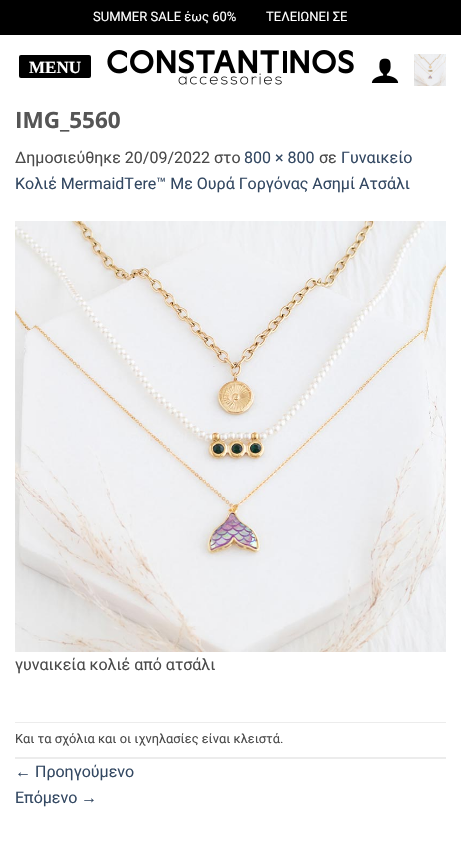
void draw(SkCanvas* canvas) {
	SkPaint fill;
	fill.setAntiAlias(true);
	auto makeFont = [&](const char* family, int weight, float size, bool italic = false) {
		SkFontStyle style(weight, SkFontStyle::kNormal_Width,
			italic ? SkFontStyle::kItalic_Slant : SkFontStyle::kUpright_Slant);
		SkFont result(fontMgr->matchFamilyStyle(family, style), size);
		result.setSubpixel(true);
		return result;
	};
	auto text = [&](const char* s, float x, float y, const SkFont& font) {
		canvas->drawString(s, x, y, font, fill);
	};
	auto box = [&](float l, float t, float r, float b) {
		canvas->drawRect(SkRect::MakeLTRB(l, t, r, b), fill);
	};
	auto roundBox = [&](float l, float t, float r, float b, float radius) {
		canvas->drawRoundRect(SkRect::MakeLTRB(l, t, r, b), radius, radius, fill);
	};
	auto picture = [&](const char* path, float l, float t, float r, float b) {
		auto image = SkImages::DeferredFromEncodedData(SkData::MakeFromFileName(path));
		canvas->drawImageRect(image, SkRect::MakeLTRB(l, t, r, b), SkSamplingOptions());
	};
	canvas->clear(0xFF000000);
	fill.setColor(0xFFFFFFFF);
	box(0, 35, 461, 852);
	fill.setColor(0xFF000000);
	roundBox(19, 55, 91, 78, 2);
	picture("image0.png", 107, 50, 354, 85);
	picture("image1.png", 371, 58, 399, 83);
	picture("image2.png", 414, 54, 446, 86);
	picture("image3.png", 15, 221, 446, 652);
	fill.setColor(0xFFECECEC);
	box(15, 722, 446, 723);
	box(15, 757, 446, 759);
	auto font1 = makeFont("Roboto", 400, 13);
	fill.setColor(0xFFFFFFFF);
	text("SUMMER SALE έως 60%", 93, 21, font1);
	text("ΤΕΛΕΙΩΝΕΙ ΣΕ", 266, 21, font1);
	auto font2 = makeFont("Liberation Serif", 700, 17);
	text("MENU", 29, 73, font2);
	auto font3 = makeFont("Open Sans", 700, 22.5f);
	fill.setColor(0xFF555555);
	text("IMG_5560", 15, 128, font3);
	auto font4 = makeFont("Roboto", 400, 16);
	fill.setColor(0xFF4A4A4A);
	text("Δημοσιεύθηκε 20/09/2022 στο", 15, 163, font4);
	fill.setColor(0xFF334862);
	text("800 × 800", 244, 163, font4);
	fill.setColor(0xFF4A4A4A);
	text("σε", 319, 163, font4);
	fill.setColor(0xFF334862);
	text("Γυναικείο", 341, 163, font4);
	text("Κολιέ MermaidTere™ Με Ουρά Γοργόνας Ασημί Ατσάλι", 15, 189, font4);
	fill.setColor(0xFF4A4A4A);
	text("γυναικεία κολιέ από ατσάλι", 15, 670, font4);
	auto font5 = makeFont("Roboto", 400, 12.8f);
	text("Και τα σχόλια και οι ιχνηλασίες είναι κλειστά.", 15, 743, font5);
	auto font6 = makeFont("Liberation Sans", 400, 16);
	fill.setColor(0xFF334862);
	text("←", 15, 777, font6);
	text("Προηγούμενο", 35, 777, font4);
	text("Επόμενο", 15, 803, font4);
	text("→", 81, 803, font6);
}
